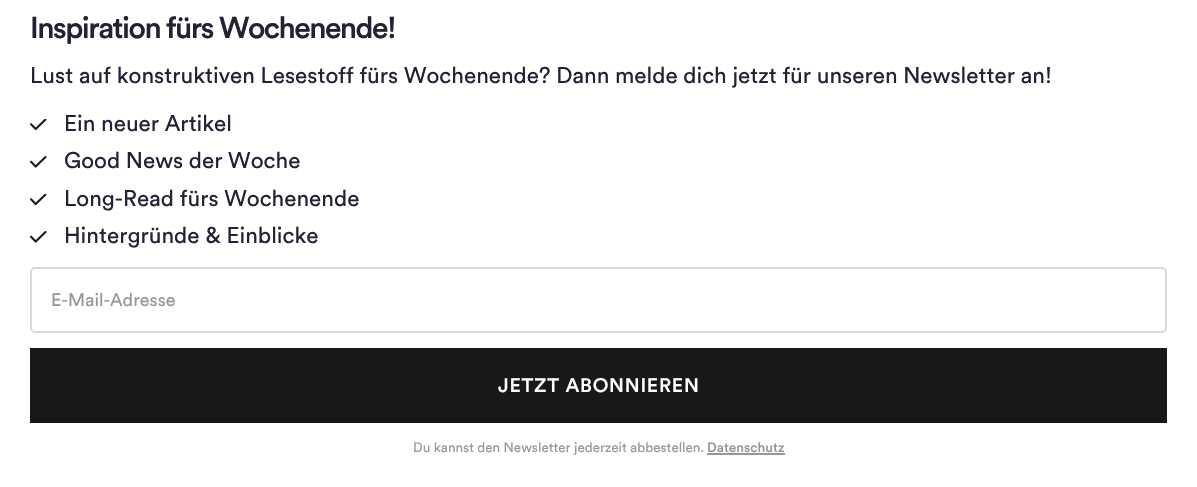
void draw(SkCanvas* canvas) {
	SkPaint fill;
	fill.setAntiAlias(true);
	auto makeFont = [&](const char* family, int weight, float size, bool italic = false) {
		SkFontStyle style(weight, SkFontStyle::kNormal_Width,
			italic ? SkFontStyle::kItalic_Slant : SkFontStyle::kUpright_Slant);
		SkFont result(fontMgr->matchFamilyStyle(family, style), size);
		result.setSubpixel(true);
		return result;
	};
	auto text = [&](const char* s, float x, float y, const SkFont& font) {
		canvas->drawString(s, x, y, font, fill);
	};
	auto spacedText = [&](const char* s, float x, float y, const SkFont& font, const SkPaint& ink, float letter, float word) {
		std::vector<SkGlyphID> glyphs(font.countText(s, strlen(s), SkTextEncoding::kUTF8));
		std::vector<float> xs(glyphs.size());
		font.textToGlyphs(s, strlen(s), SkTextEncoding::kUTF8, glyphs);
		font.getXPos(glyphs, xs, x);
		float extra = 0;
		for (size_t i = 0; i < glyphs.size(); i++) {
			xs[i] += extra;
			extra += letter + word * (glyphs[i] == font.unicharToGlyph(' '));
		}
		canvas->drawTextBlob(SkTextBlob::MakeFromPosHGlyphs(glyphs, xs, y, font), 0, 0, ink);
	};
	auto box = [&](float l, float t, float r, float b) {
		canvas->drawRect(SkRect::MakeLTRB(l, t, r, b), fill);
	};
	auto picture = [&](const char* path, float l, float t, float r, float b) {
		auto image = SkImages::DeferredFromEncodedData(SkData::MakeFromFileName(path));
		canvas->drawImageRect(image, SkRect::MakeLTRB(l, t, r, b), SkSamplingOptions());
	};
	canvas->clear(0xFFFFFFFF);
	picture("image0.png", 30, 119, 47, 131);
	picture("image1.png", 30, 156, 47, 168);
	picture("image0.png", 30, 194, 47, 206);
	picture("image1.png", 30, 231, 47, 243);
	fill.setStyle(SkPaint::kStroke_Style);
	fill.setStrokeWidth(2);
	fill.setColor(0xFFD9D9D9);
	canvas->drawRoundRect(SkRect::MakeLTRB(31, 268, 1166, 332), 4, 4, fill);
	fill.setStyle(SkPaint::kFill_Style);
	fill.setColor(0xFF1A171B);
	box(30, 348, 1167, 423);
	fill.setColor(0xFF979797);
	box(707, 453, 785, 455);
	auto font1 = makeFont("Circular", 500, 30);
	fill.setColor(0xFF271F36);
	spacedText("Inspiration fürs Wochenende!", 30, 38, font1, fill, -1.5f, 0);
	auto font2 = makeFont("Circular", 400, 22.5f);
	text("Lust auf konstruktiven Lesestoff fürs Wochenende? Dann melde dich jetzt für unseren Newsletter an!", 30, 83, font2);
	text("Ein neuer Artikel", 64, 131, font2);
	text("Good News der Woche", 64, 168, font2);
	text("Long-Read fürs Wochenende", 64, 206, font2);
	text("Hintergründe & Einblicke", 64, 243, font2);
	auto font3 = makeFont("Circular", 400, 18);
	fill.setColor(0xFF979797);
	text("E-Mail-Adresse", 51, 306, font3);
	auto font4 = makeFont("Circular", 500, 19.5f);
	fill.setColor(0xFFFFFFFF);
	spacedText("JETZT ABONNIEREN", 498, 392, font4, fill, 0.75f, 0);
	auto font5 = makeFont("Circular", 400, 13.5f);
	fill.setColor(0xFF979797);
	text("Du kannst den Newsletter jederzeit abbestellen.", 413, 452, font5);
	auto font6 = makeFont("Circular", 500, 13.5f);
	text("Datenschutz", 707, 452, font6);
}
